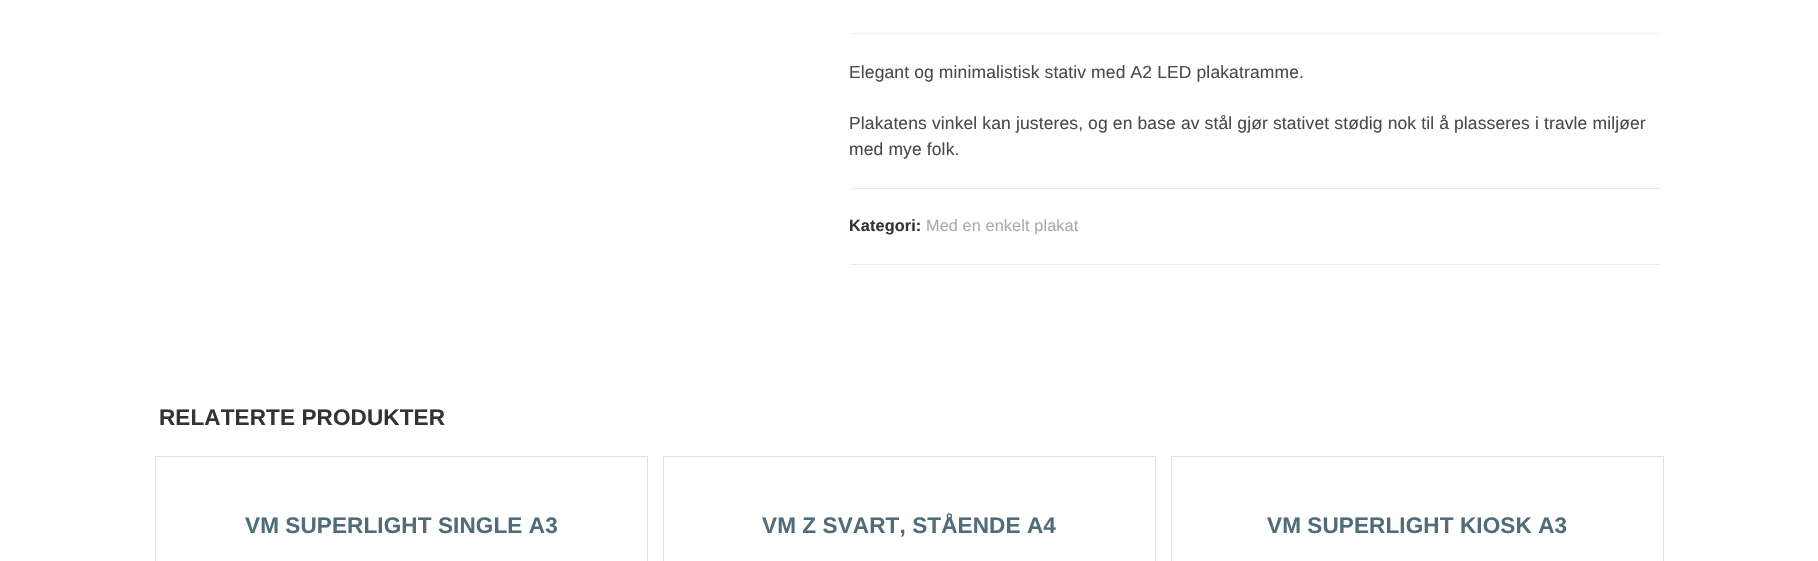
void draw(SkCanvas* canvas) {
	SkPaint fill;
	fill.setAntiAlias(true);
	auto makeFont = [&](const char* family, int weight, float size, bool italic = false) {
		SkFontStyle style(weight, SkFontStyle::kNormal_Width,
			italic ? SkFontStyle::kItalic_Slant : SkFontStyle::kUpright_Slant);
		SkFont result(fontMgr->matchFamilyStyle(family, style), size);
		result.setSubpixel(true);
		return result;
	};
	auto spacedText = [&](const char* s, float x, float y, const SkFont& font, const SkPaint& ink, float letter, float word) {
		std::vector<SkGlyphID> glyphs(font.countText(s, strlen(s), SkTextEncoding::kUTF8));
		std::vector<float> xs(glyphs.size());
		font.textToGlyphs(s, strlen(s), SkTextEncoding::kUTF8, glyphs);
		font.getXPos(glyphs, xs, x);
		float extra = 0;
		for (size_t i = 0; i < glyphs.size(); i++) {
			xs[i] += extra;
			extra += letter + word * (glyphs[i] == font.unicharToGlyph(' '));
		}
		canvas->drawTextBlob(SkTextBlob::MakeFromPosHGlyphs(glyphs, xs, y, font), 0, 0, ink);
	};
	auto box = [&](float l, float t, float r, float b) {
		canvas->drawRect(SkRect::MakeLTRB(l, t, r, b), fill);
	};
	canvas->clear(0xFFFFFFFF);
	fill.setColor(0xFFF1F1F1);
	box(850, 33, 1660, 34);
	fill.setColor(0xFFEAEAEA);
	box(850, 188, 1660, 189);
	box(850, 264, 1660, 265);
	fill.setStyle(SkPaint::kStroke_Style);
	fill.setStrokeWidth(1);
	fill.setColor(0xFFE0E0E0);
	canvas->drawRect(SkRect::MakeLTRB(155.5f, 456.5f, 647.5f, 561.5f), fill);
	canvas->drawRect(SkRect::MakeLTRB(663.5f, 456.5f, 1155.5f, 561.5f), fill);
	canvas->drawRect(SkRect::MakeLTRB(1171.5f, 456.5f, 1663.5f, 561.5f), fill);
	auto font1 = makeFont("Liberation Sans", 400, 17.5f);
	fill.setStyle(SkPaint::kFill_Style);
	fill.setColor(0xFF4A4A4A);
	spacedText("Elegant og minimalistisk stativ med A2 LED plakatramme.", 849, 78, font1, fill, 0.12f, 0);
	spacedText("Plakatens vinkel kan justeres, og en base av stål gjør stativet stødig nok til å plasseres i travle miljøer", 849, 129, font1, fill, 0.12f, 0);
	spacedText("med mye folk.", 849, 155, font1, fill, 0.12f, 0);
	auto font2 = makeFont("Liberation Sans", 700, 16.25f);
	fill.setColor(0xFF333333);
	spacedText("Kategori:", 849, 231, font2, fill, 0.12f, 0);
	auto font3 = makeFont("Liberation Sans", 400, 16.25f);
	fill.setColor(0xFFABABAB);
	spacedText("Med en enkelt plakat", 926, 231, font3, fill, 0.12f, 0);
	auto font4 = makeFont("Liberation Sans", 700, 22.5f);
	fill.setColor(0xFF333333);
	spacedText("RELATERTE PRODUKTER", 159, 425, font4, fill, 0.12f, 0);
	fill.setColor(0xFF506C7A);
	spacedText("VM SUPERLIGHT SINGLE A3", 245, 533, font4, fill, 0.12f, 0);
	spacedText("VM Z SVART, STÅENDE A4", 762, 533, font4, fill, 0.12f, 0);
	spacedText("VM SUPERLIGHT KIOSK A3", 1267, 533, font4, fill, 0.12f, 0);
}
